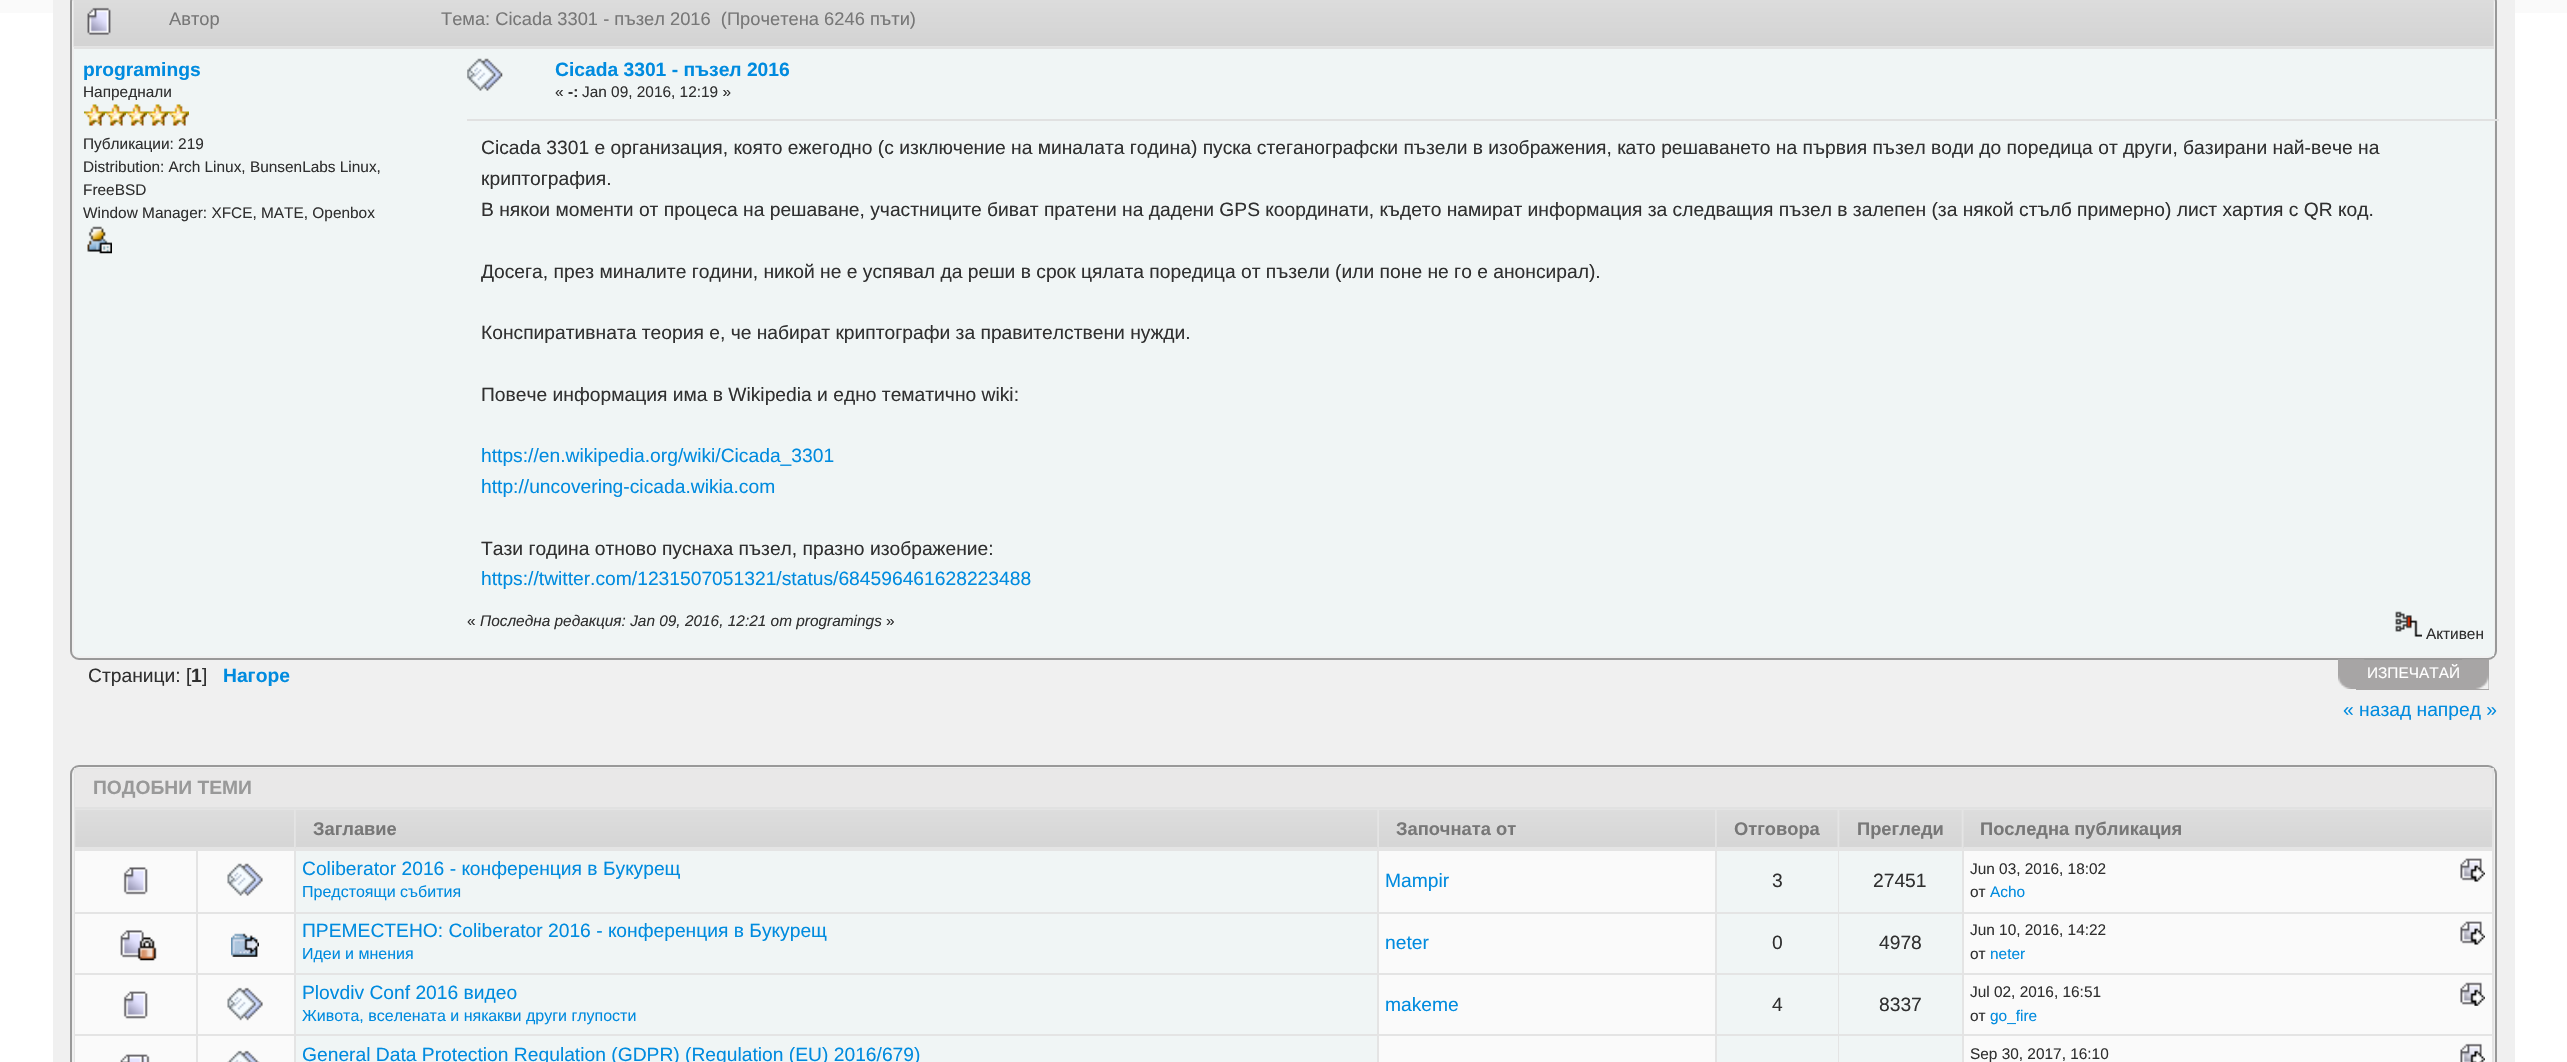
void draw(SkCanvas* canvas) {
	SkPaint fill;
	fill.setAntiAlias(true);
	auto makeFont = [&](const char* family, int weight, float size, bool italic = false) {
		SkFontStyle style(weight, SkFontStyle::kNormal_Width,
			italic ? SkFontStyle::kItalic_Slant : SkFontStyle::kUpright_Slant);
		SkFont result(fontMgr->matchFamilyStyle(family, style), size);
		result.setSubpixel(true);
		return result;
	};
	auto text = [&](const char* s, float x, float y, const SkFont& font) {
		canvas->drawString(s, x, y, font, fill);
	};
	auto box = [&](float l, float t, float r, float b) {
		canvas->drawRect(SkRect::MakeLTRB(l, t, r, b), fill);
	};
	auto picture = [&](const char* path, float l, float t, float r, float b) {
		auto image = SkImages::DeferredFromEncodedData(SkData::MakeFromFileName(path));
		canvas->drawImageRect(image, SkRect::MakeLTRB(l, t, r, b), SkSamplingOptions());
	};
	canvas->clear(0xFFFFFFFF);
	fill.setColor(0xFFFAFAFA);
	box(0, 0, 2567, 13);
	fill.setColor(0xFFF0F0F0);
	box(53, 0, 2515, 1062);
	fill.setStyle(SkPaint::kStroke_Style);
	fill.setStrokeWidth(2);
	fill.setColor(0xFF999999);
	canvas->drawRoundRect(SkRect::MakeLTRB(71, -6, 2496, 659), 8, 8, fill);
	picture("image0.png", 73, 0, 2494, 47);
	fill.setStyle(SkPaint::kFill_Style);
	fill.setColor(0xFFE4E4E4);
	box(74, 46, 2494, 47);
	picture("image1.png", 87, 7, 111, 35);
	fill.setColor(0xFFF0F5F5);
	box(74, 49, 2494, 656);
	fill.setColor(0xFFE1E1E1);
	box(74, 47, 2494, 49);
	picture("image2.png", 84, 104, 105, 126);
	picture("image2.png", 105, 104, 126, 126);
	picture("image3.png", 126, 104, 147, 126);
	picture("image3.png", 147, 104, 168, 126);
	picture("image2.png", 168, 104, 189, 126);
	picture("image4.png", 87, 226, 112, 254);
	picture("image5.png", 467, 58, 503, 91);
	box(467, 119, 2499, 121);
	picture("image6.png", 2395, 611, 2422, 637);
	picture("image7.png", 2338, 659, 2365, 689);
	fill.setColor(0xFFA7A5A5);
	box(2356, 660, 2489, 690);
	picture("image8.png", 2462, 659, 2489, 689);
	fill.setStyle(SkPaint::kStroke_Style);
	fill.setColor(0xFF999999);
	canvas->drawRoundRect(SkRect::MakeLTRB(71, 766, 2496, 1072), 8, 8, fill);
	fill.setStyle(SkPaint::kFill_Style);
	fill.setColor(0xFFE4E4E4);
	box(74, 768, 2494, 1062);
	fill.setColor(0xFFE9E8E8);
	box(75, 769, 2492, 807);
	fill.setColor(0xFFE1E1E1);
	box(75, 807, 2492, 809);
	picture("image9.png", 75, 810, 294, 847);
	picture("image10.png", 295, 810, 1378, 849);
	fill.setColor(0xFFE4E4E4);
	box(296, 847, 1377, 849);
	picture("image11.png", 1379, 810, 1715, 847);
	picture("image12.png", 1716, 810, 1838, 849);
	box(1717, 847, 1838, 849);
	picture("image13.png", 1839, 810, 1962, 847);
	picture("image14.png", 1963, 810, 2492, 849);
	box(1964, 847, 2492, 849);
	fill.setColor(0xFFFAFAFA);
	box(75, 851, 196, 912);
	picture("image15.png", 123, 867, 148, 895);
	box(198, 851, 294, 912);
	picture("image16.png", 227, 863, 263, 896);
	fill.setColor(0xFFF0F5F5);
	box(296, 851, 1377, 912);
	fill.setColor(0xFFFAFAFA);
	box(1379, 851, 1715, 912);
	fill.setColor(0xFFF0F5F5);
	box(1717, 851, 1838, 912);
	box(1839, 851, 1962, 912);
	fill.setColor(0xFFFAFAFA);
	box(1964, 851, 2492, 912);
	picture("image17.png", 2460, 858, 2485, 882);
	box(75, 914, 196, 973);
	picture("image18.png", 120, 930, 157, 961);
	box(198, 914, 294, 973);
	picture("image19.png", 231, 933, 259, 957);
	fill.setColor(0xFFF0F5F5);
	box(296, 914, 1377, 973);
	fill.setColor(0xFFFAFAFA);
	box(1379, 914, 1715, 973);
	fill.setColor(0xFFF0F5F5);
	box(1717, 914, 1838, 973);
	box(1839, 914, 1962, 973);
	fill.setColor(0xFFFAFAFA);
	box(1964, 914, 2492, 973);
	picture("image17.png", 2460, 921, 2485, 945);
	box(75, 975, 196, 1034);
	picture("image20.png", 123, 991, 148, 1019);
	box(198, 975, 294, 1034);
	picture("image21.png", 227, 987, 263, 1021);
	fill.setColor(0xFFF0F5F5);
	box(296, 975, 1377, 1034);
	fill.setColor(0xFFFAFAFA);
	box(1379, 975, 1715, 1034);
	fill.setColor(0xFFF0F5F5);
	box(1717, 975, 1838, 1034);
	box(1839, 975, 1962, 1034);
	fill.setColor(0xFFFAFAFA);
	box(1964, 975, 2492, 1034);
	picture("image22.png", 2460, 982, 2485, 1006);
	box(75, 1036, 196, 1062);
	picture("image23.png", 120, 1054, 150, 1062);
	box(198, 1036, 294, 1062);
	picture("image24.png", 227, 1050, 260, 1062);
	fill.setColor(0xFFF0F5F5);
	box(296, 1036, 1377, 1062);
	fill.setColor(0xFFFAFAFA);
	box(1379, 1036, 1715, 1062);
	fill.setColor(0xFFF0F5F5);
	box(1717, 1036, 1838, 1062);
	box(1839, 1036, 1962, 1062);
	fill.setColor(0xFFFAFAFA);
	box(1964, 1036, 2492, 1062);
	picture("image25.png", 2460, 1043, 2485, 1062);
	auto font1 = makeFont("Liberation Sans", 400, 18.3f);
	fill.setColor(0xFF777777);
	text("Автор", 169, 25, font1);
	text("Тема: Cicada 3301 - пъзел 2016  (Прочетена 6246 пъти)", 441, 25, font1);
	auto font2 = makeFont("Liberation Sans", 700, 19.25f);
	fill.setColor(0xFF008BDF);
	text("programings", 83, 76, font2);
	auto font3 = makeFont("Liberation Sans", 400, 15.4f);
	fill.setColor(0xFF303030);
	text("Напреднали", 83, 97, font3);
	text("Публикации: 219", 83, 149, font3);
	text("Distribution: Arch Linux, BunsenLabs Linux,", 83, 172, font3);
	text("FreeBSD", 83, 195, font3);
	text("Window Manager: XFCE, MATE, Openbox", 83, 218, font3);
	fill.setColor(0xFF008BDF);
	text("Cicada 3301 - пъзел 2016", 555, 76, font2);
	fill.setColor(0xFF303030);
	text("«", 555, 97, font3);
	auto font4 = makeFont("Liberation Sans", 700, 15.4f);
	text("-:", 568, 97, font4);
	text("Jan 09, 2016, 12:19 »", 582, 97, font3);
	auto font5 = makeFont("Liberation Sans", 400, 19.25f);
	text("Cicada 3301 е организация, която ежегодно (с изключение на миналата година) пуска стеганографски пъзели в изображения, като решаването на първия пъзел води до поредица от други, базирани най-вече на", 481, 154, font5);
	text("криптография.", 481, 185, font5);
	text("В някои моменти от процеса на решаване, участниците биват пратени на дадени GPS координати, където намират информация за следващия пъзел в залепен (за някой стълб примерно) лист хартия с QR код.", 481, 216, font5);
	text("Досега, през миналите години, никой не е успявал да реши в срок цялата поредица от пъзели (или поне не го е анонсирал).", 481, 278, font5);
	text("Конспиративната теория е, че набират криптографи за правителствени нужди.", 481, 339, font5);
	text("Повече информация има в Wikipedia и едно тематично wiki:", 481, 401, font5);
	fill.setColor(0xFF008BDF);
	text("https://en.wikipedia.org/wiki/Cicada_3301", 481, 462, font5);
	text("http://uncovering-cicada.wikia.com", 481, 493, font5);
	fill.setColor(0xFF303030);
	text("Тази година отново пуснаха пъзел, празно изображение:", 481, 555, font5);
	fill.setColor(0xFF008BDF);
	text("https://twitter.com/1231507051321/status/684596461628223488", 481, 585, font5);
	fill.setColor(0xFF303030);
	text("«", 467, 626, font3);
	auto font6 = makeFont("Liberation Sans", 400, 15.4f, true);
	text("Последна редакция: Jan 09, 2016, 12:21 от programings", 480, 626, font6);
	text("»", 886, 626, font3);
	text("Активен", 2426, 639, font3);
	text("Страници: [", 88, 682, font5);
	text("1", 191, 682, font2);
	text("]", 202, 682, font5);
	fill.setColor(0xFF008BDF);
	text("Нагоре", 223, 682, font2);
	fill.setColor(0xFFFFFFFF);
	text("ИЗПЕЧАТАЙ", 2367, 678, font3);
	fill.setColor(0xFF008BDF);
	text("« назад напред »", 2343, 716, font5);
	fill.setColor(0xFF999999);
	text("ПОДОБНИ ТЕМИ", 93, 794, font2);
	auto font7 = makeFont("Liberation Sans", 700, 18.3f);
	fill.setColor(0xFF777777);
	text("Заглавие", 313, 835, font7);
	text("Започната от", 1396, 835, font7);
	text("Отговора", 1734, 835, font7);
	text("Прегледи", 1857, 835, font7);
	text("Последна публикация", 1980, 835, font7);
	fill.setColor(0xFF008BDF);
	text("Coliberator 2016 - конференция в Букурещ", 302, 875, font5);
	auto font8 = makeFont("Liberation Sans", 400, 16);
	text("Предстоящи събития", 302, 897, font8);
	text("Mampir", 1385, 887, font5);
	fill.setColor(0xFF303030);
	text("3", 1772, 887, font5);
	text("27451", 1873, 887, font5);
	text("Jun 03, 2016, 18:02", 1970, 874, font3);
	text("от", 1970, 897, font3);
	fill.setColor(0xFF008BDF);
	text("Acho", 1990, 897, font3);
	text("ПРЕМЕСТЕНО: Coliberator 2016 - конференция в Букурещ", 302, 937, font5);
	text("Идеи и мнения", 302, 959, font8);
	text("neter", 1385, 949, font5);
	fill.setColor(0xFF303030);
	text("0", 1772, 949, font5);
	text("4978", 1879, 949, font5);
	text("Jun 10, 2016, 14:22", 1970, 935, font3);
	text("от", 1970, 959, font3);
	fill.setColor(0xFF008BDF);
	text("neter", 1990, 959, font3);
	text("Plovdiv Conf 2016 видео", 302, 999, font5);
	text("Живота, вселената и някакви други глупости", 302, 1021, font8);
	text("makeme", 1385, 1011, font5);
	fill.setColor(0xFF303030);
	text("4", 1772, 1011, font5);
	text("8337", 1879, 1011, font5);
	text("Jul 02, 2016, 16:51", 1970, 997, font3);
	text("от", 1970, 1021, font3);
	fill.setColor(0xFF008BDF);
	text("go_fire", 1990, 1021, font3);
	text("General Data Protection Regulation (GDPR) (Regulation (EU) 2016/679)", 302, 1061, font5);
	fill.setColor(0xFF303030);
	text("Sep 30, 2017, 16:10", 1970, 1059, font3);
}
